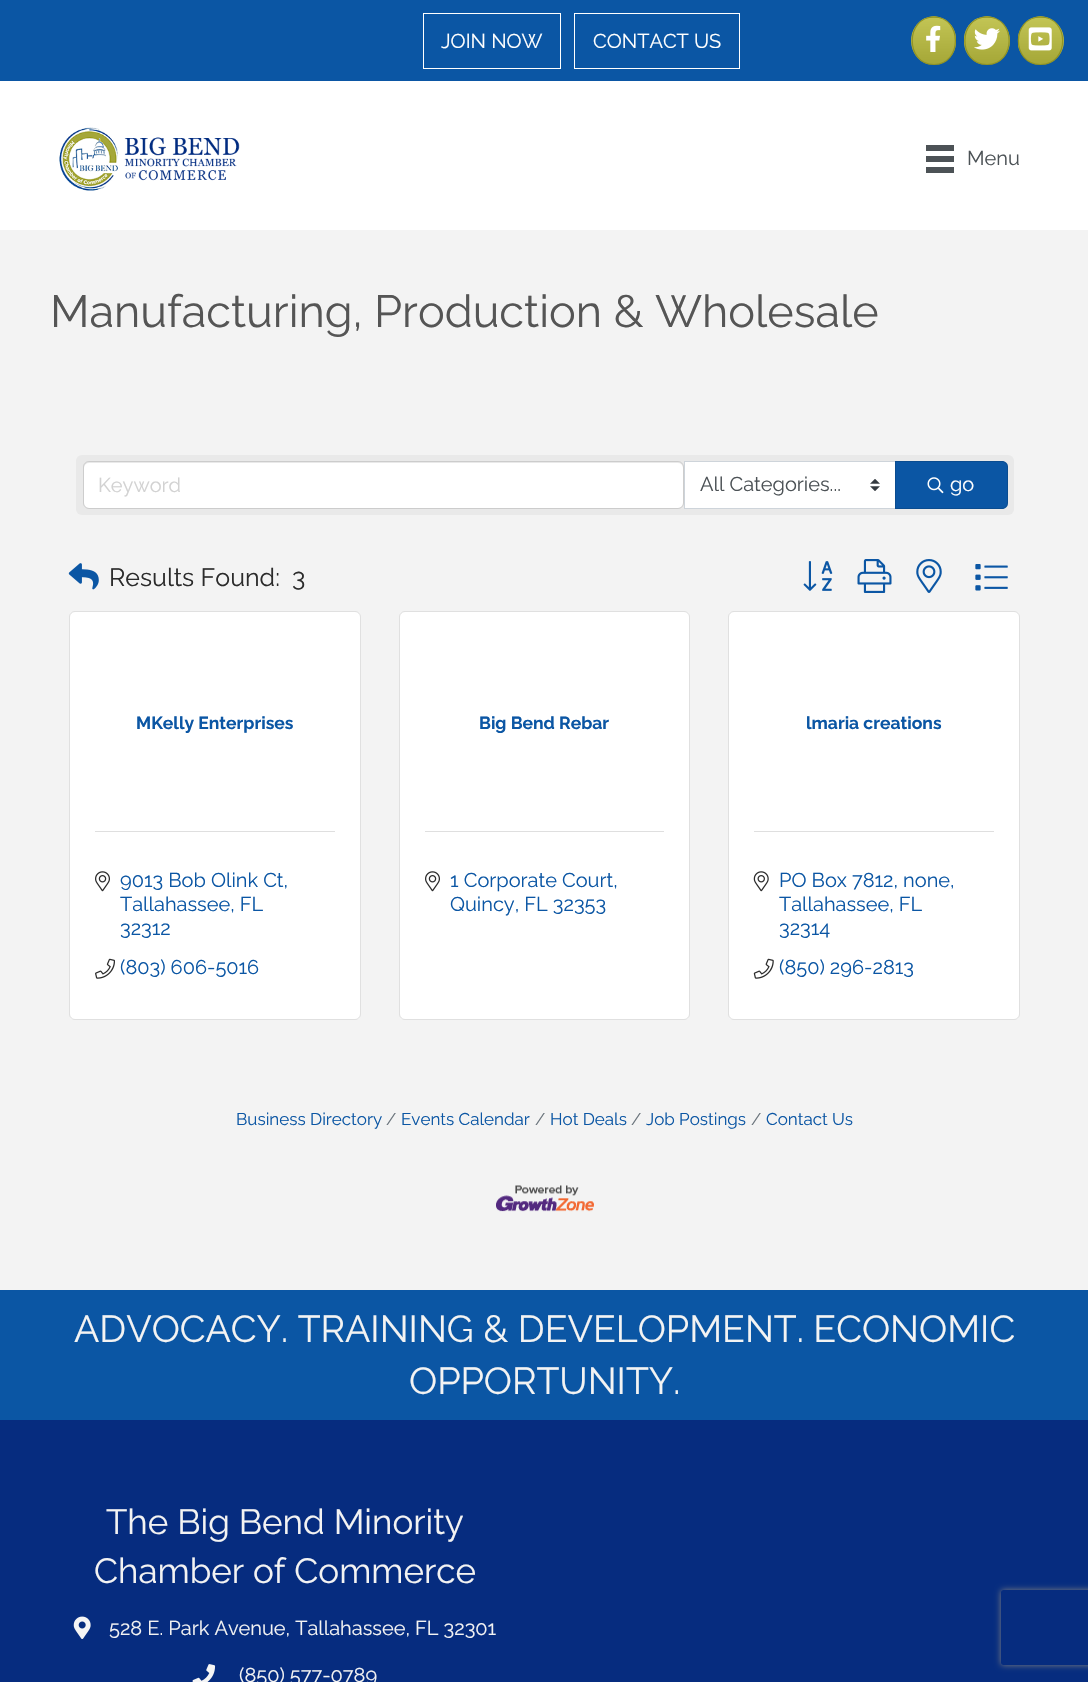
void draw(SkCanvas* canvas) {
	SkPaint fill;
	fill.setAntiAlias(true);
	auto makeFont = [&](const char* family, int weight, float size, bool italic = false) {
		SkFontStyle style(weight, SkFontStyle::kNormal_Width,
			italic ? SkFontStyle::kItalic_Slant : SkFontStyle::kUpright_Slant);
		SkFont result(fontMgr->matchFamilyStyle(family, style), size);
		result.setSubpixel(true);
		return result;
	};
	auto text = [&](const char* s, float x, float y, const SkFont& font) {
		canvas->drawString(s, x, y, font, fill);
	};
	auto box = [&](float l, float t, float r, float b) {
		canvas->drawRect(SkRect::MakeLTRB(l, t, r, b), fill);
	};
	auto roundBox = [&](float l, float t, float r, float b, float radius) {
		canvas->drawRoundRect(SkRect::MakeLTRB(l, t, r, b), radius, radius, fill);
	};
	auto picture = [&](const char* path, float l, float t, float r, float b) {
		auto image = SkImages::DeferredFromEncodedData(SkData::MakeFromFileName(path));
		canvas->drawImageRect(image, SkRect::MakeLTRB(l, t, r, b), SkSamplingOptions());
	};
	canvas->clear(0xFFFFFFFF);
	fill.setColor(0xFF0B56A4);
	box(0, 0, 1088, 81);
	fill.setStyle(SkPaint::kStroke_Style);
	fill.setStrokeWidth(1);
	fill.setColor(0xFFFFFFFF);
	canvas->drawRect(SkRect::MakeLTRB(423.5f, 13.5f, 560.5f, 68.5f), fill);
	canvas->drawRect(SkRect::MakeLTRB(574.5f, 13.5f, 739.5f, 68.5f), fill);
	fill.setStyle(SkPaint::kFill_Style);
	{
		const SkColor colors[] = {0xFFC3C555, 0xFFA5A737};
		const float stops[] = {0, 1};
		const SkPoint ends[] = {{934, -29}, {934, 18}};
		fill.setShader(SkGradientShader::MakeLinear(ends, colors, stops, 2, SkTileMode::kClamp));
		fill.setAlpha(255);
	}
	canvas->drawPath(SkPathBuilder().moveTo(934, 16).cubicTo(936.5f, 16, 939.5f, 17, 942, 18).lineTo(925.5f, 18).cubicTo(928, 17, 931, 16, 934, 16).close().detach(), fill);
	{
		const SkColor colors[] = {0xFFC3C555, 0xFFA5A737};
		const float stops[] = {0, 1};
		const SkPoint ends[] = {{934, 17}, {934, 64}};
		fill.setShader(SkGradientShader::MakeLinear(ends, colors, stops, 2, SkTileMode::kClamp));
		fill.setAlpha(255);
	}
	canvas->drawPath(SkPathBuilder().moveTo(927, 64).cubicTo(918, 61, 911, 52, 911, 41).cubicTo(911, 30, 917, 22, 925, 18).lineTo(942, 18).cubicTo(949, 21, 955, 28, 956, 37).lineTo(956, 44).cubicTo(955, 54, 948, 61, 940, 64).close().detach(), fill);
	fill.setStyle(SkPaint::kStroke_Style);
	fill.setStrokeWidth(1.2f);
	fill.setShader(nullptr);
	fill.setColor(0xFF919323);
	canvas->drawPath(SkPathBuilder().moveTo(934, 17).cubicTo(962.5f, 17, 962.5f, 64.5f, 934, 64.5f).cubicTo(905, 64.5f, 905, 17, 934, 17).close().detach(), fill);
	picture("image0.png", 926, 25, 941, 52);
	fill.setStyle(SkPaint::kFill_Style);
	{
		const SkColor colors[] = {0xFFC3C555, 0xFFA5A737};
		const float stops[] = {0, 1};
		const SkPoint ends[] = {{987, -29}, {987, 18}};
		fill.setShader(SkGradientShader::MakeLinear(ends, colors, stops, 2, SkTileMode::kClamp));
		fill.setAlpha(255);
	}
	canvas->drawPath(SkPathBuilder().moveTo(987, 16).cubicTo(990, 16, 993, 17, 995.5f, 18).lineTo(978.5f, 18).cubicTo(981, 17, 984, 16, 987, 16).close().detach(), fill);
	{
		const SkColor colors[] = {0xFFC3C555, 0xFFA5A737};
		const float stops[] = {0, 1};
		const SkPoint ends[] = {{987, 17}, {987, 64}};
		fill.setShader(SkGradientShader::MakeLinear(ends, colors, stops, 2, SkTileMode::kClamp));
		fill.setAlpha(255);
	}
	canvas->drawPath(SkPathBuilder().moveTo(964, 37).cubicTo(965, 28, 971, 21, 978, 18).lineTo(995, 18).cubicTo(1004, 22, 1010, 30, 1010, 41).cubicTo(1010, 52, 1003, 61, 993, 64).lineTo(980, 64).cubicTo(972, 61, 965, 54, 964, 44).close().detach(), fill);
	fill.setStyle(SkPaint::kStroke_Style);
	fill.setShader(nullptr);
	fill.setColor(0xFF919323);
	canvas->drawPath(SkPathBuilder().moveTo(987, 17).cubicTo(1016.5f, 17, 1016.5f, 64.5f, 987, 64.5f).cubicTo(957.5f, 64.5f, 957.5f, 17, 987, 17).close().detach(), fill);
	picture("image1.png", 974, 28, 1000, 50);
	fill.setStyle(SkPaint::kFill_Style);
	{
		const SkColor colors[] = {0xFFC3C555, 0xFFA5A737};
		const float stops[] = {0, 1};
		const SkPoint ends[] = {{1041, -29}, {1041, 18}};
		fill.setShader(SkGradientShader::MakeLinear(ends, colors, stops, 2, SkTileMode::kClamp));
		fill.setAlpha(255);
	}
	canvas->drawPath(SkPathBuilder().moveTo(1040.5f, 16).cubicTo(1043.5f, 16, 1046.5f, 17, 1049, 18).lineTo(1032, 18).cubicTo(1034.5f, 17, 1037.5f, 16, 1040.5f, 16).close().detach(), fill);
	{
		const SkColor colors[] = {0xFFC3C555, 0xFFA5A737};
		const float stops[] = {0, 1};
		const SkPoint ends[] = {{1041, 17}, {1041, 64}};
		fill.setShader(SkGradientShader::MakeLinear(ends, colors, stops, 2, SkTileMode::kClamp));
		fill.setAlpha(255);
	}
	canvas->drawPath(SkPathBuilder().moveTo(1018, 36).cubicTo(1020, 28, 1025, 21, 1032, 18).lineTo(1049, 18).cubicTo(1058, 22, 1064, 30, 1064, 41).cubicTo(1064, 52, 1057, 61, 1047, 64).lineTo(1034, 64).cubicTo(1026, 61, 1020, 54, 1018, 46).close().detach(), fill);
	fill.setStyle(SkPaint::kStroke_Style);
	fill.setShader(nullptr);
	fill.setColor(0xFF919323);
	canvas->drawPath(SkPathBuilder().moveTo(1040.5f, 17).cubicTo(1070, 17, 1070, 64.5f, 1040.5f, 64.5f).cubicTo(1011, 64.5f, 1011, 17, 1040.5f, 17).close().detach(), fill);
	picture("image2.png", 1028, 27, 1052, 51);
	picture("image3.png", 59, 127, 240, 191);
	fill.setStyle(SkPaint::kFill_Style);
	fill.setColor(0xFF4C5256);
	box(926, 145, 954, 151);
	box(926, 156, 954, 162);
	box(926, 167, 954, 173);
	fill.setColor(0xFFF3F3F3);
	box(0, 230, 1088, 1290);
	fill.setColor(0xFFE9E9E9);
	roundBox(76, 455, 1014, 515, 6);
	fill.setColor(0xFFFFFFFF);
	roundBox(84, 463, 683, 508, 5);
	fill.setStyle(SkPaint::kStroke_Style);
	fill.setStrokeWidth(1);
	fill.setColor(0x1F000000);
	canvas->drawRoundRect(SkRect::MakeLTRB(83.5f, 461.5f, 683.5f, 508.5f), 5.5f, 5.5f, fill);
	fill.setStyle(SkPaint::kFill_Style);
	fill.setColor(0xFFFFFFFF);
	box(685, 462, 895, 508);
	picture("image4.png", 870, 479, 880, 491);
	fill.setStyle(SkPaint::kStroke_Style);
	fill.setColor(0xFFCED4DA);
	canvas->drawRect(SkRect::MakeLTRB(684.5f, 461.5f, 895.5f, 508.5f), fill);
	fill.setStyle(SkPaint::kFill_Style);
	fill.setColor(0xFF0B56A4);
	canvas->drawPath(SkPathBuilder().moveTo(895, 461).lineTo(1002, 461).cubicTo(1005.5f, 461, 1008, 463.5f, 1008, 467).lineTo(1008, 503).cubicTo(1008, 506.5f, 1005.5f, 509, 1002, 509).lineTo(895, 509).close().detach(), fill);
	fill.setStyle(SkPaint::kStroke_Style);
	fill.setColor(0x1F000000);
	canvas->drawPath(SkPathBuilder().moveTo(895.5f, 461.5f).lineTo(1002, 461.5f).cubicTo(1005, 461.5f, 1007.5f, 464, 1007.5f, 467).lineTo(1007.5f, 503).cubicTo(1007.5f, 506, 1005, 508.5f, 1002, 508.5f).lineTo(895.5f, 508.5f).close().detach(), fill);
	picture("image5.png", 927, 477, 944, 494);
	picture("image6.png", 68, 563, 99, 590);
	picture("image7.png", 803, 561, 833, 591);
	picture("image8.png", 857, 559, 892, 593);
	picture("image9.png", 916, 559, 942, 593);
	picture("image10.png", 975, 564, 1008, 591);
	fill.setStyle(SkPaint::kFill_Style);
	fill.setColor(0xFFFFFFFF);
	roundBox(69, 611, 361, 1020, 6);
	fill.setStyle(SkPaint::kStroke_Style);
	fill.setColor(0x1F000000);
	canvas->drawRoundRect(SkRect::MakeLTRB(69.5f, 611.5f, 360.5f, 1019.5f), 5.5f, 5.5f, fill);
	fill.setStyle(SkPaint::kFill_Style);
	fill.setColor(0xFFDFDFDF);
	box(95, 831, 335, 832);
	picture("image11.png", 95, 871, 110, 892);
	picture("image12.png", 95, 958, 115, 979);
	fill.setColor(0xFFFFFFFF);
	roundBox(399, 611, 690, 1020, 6);
	fill.setStyle(SkPaint::kStroke_Style);
	fill.setColor(0x1F000000);
	canvas->drawRoundRect(SkRect::MakeLTRB(399.5f, 611.5f, 689.5f, 1019.5f), 5.5f, 5.5f, fill);
	fill.setStyle(SkPaint::kFill_Style);
	fill.setColor(0xFFDFDFDF);
	box(425, 831, 664, 832);
	picture("image11.png", 425, 871, 440, 892);
	fill.setColor(0xFFFFFFFF);
	roundBox(728, 611, 1020, 1020, 6);
	fill.setStyle(SkPaint::kStroke_Style);
	fill.setColor(0x1F000000);
	canvas->drawRoundRect(SkRect::MakeLTRB(728.5f, 611.5f, 1019.5f, 1019.5f), 5.5f, 5.5f, fill);
	fill.setStyle(SkPaint::kFill_Style);
	fill.setColor(0xFFDFDFDF);
	box(754, 831, 994, 832);
	picture("image13.png", 753, 871, 769, 892);
	picture("image14.png", 753, 958, 774, 979);
	picture("image15.png", 496, 1185, 594, 1212);
	fill.setColor(0xFF0B56A4);
	box(0, 1290, 1088, 1420);
	fill.setColor(0xFF062C7F);
	box(0, 1420, 1088, 1682);
	picture("image16.png", 73, 1616, 91, 1639);
	picture("image17.png", 192, 1664, 216, 1682);
	canvas->save();
	canvas->clipPath(SkPathBuilder(SkPathFillType::kEvenOdd).moveTo(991, 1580).lineTo(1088, 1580).lineTo(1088, 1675).lineTo(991, 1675).close().moveTo(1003.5f, 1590).lineTo(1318.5f, 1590).cubicTo(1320, 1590, 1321, 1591, 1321, 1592.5f).lineTo(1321, 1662.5f).cubicTo(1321, 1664, 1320, 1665, 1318.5f, 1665).lineTo(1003.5f, 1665).cubicTo(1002, 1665, 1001, 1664, 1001, 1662.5f).lineTo(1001, 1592.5f).cubicTo(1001, 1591, 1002, 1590, 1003.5f, 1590).close().detach(), true);
	fill.setColor(0xFF808080);
	fill.setMaskFilter(SkMaskFilter::MakeBlur(kNormal_SkBlurStyle, 3));
	canvas->drawRoundRect(SkRect::MakeLTRB(1001, 1590, 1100, 1665), 2.5f, 2.5f, fill);
	fill.setMaskFilter(nullptr);
	canvas->restore();
	auto font1 = makeFont("Raleway", 400, 20);
	fill.setColor(0xFFFFFFFF);
	text("JOIN NOW", 441, 48, font1);
	text("CONTACT US", 593, 48, font1);
	fill.setColor(0xFF4C5256);
	text("Menu", 967, 165, font1);
	auto font2 = makeFont("Raleway", 400, 45);
	fill.setColor(0xFF555555);
	text("Manufacturing, Production & Wholesale", 50, 327, font2);
	fill.setColor(0xFFD2D2D2);
	text("Keyword", 98, 492, font1);
	fill.setColor(0xFF4C5256);
	text("All Categories...", 700, 491, font1);
	fill.setColor(0xFFFFFFFF);
	text("go", 950, 491, font1);
	auto font3 = makeFont("Raleway", 400, 25);
	fill.setColor(0xFF2B2B2B);
	text("Results Found:", 109, 586, font3);
	text("3", 292, 586, font3);
	auto font4 = makeFont("Raleway", 700, 17.5f);
	fill.setColor(0xFF0B56A4);
	text("MKelly Enterprises", 136, 729, font4);
	text("9013 Bob Olink Ct,", 120, 887, font1);
	text("Tallahassee, FL", 120, 911, font1);
	text("32312", 120, 935, font1);
	text("(803) 606-5016", 120, 974, font1);
	text("Big Bend Rebar", 479, 729, font4);
	text("1 Corporate Court,", 450, 887, font1);
	text("Quincy, FL 32353", 450, 911, font1);
	text("lmaria creations", 806, 729, font4);
	text("PO Box 7812, none,", 779, 887, font1);
	text("Tallahassee, FL", 779, 911, font1);
	text("32314", 779, 935, font1);
	text("(850) 296-2813", 779, 974, font1);
	auto font5 = makeFont("Raleway", 400, 17);
	text("Business Directory", 236, 1125, font5);
	fill.setColor(0xFF6C757D);
	text("/", 386, 1125, font5);
	fill.setColor(0xFF0B56A4);
	text("Events Calendar", 401, 1125, font5);
	fill.setColor(0xFF6C757D);
	text("/", 535, 1125, font5);
	fill.setColor(0xFF0B56A4);
	text("Hot Deals", 550, 1125, font5);
	fill.setColor(0xFF6C757D);
	text("/", 631, 1125, font5);
	fill.setColor(0xFF0B56A4);
	text("Job Postings", 646, 1125, font5);
	fill.setColor(0xFF6C757D);
	text("/", 751, 1125, font5);
	fill.setColor(0xFF0B56A4);
	text("Contact Us", 766, 1125, font5);
	auto font6 = makeFont("Raleway", 400, 37.5f);
	fill.setColor(0xFFF3F3F3);
	text("ADVOCACY. TRAINING & DEVELOPMENT. ECONOMIC", 74, 1342, font6);
	text("OPPORTUNITY.", 409, 1394, font6);
	auto font7 = makeFont("Raleway", 400, 35);
	text("The Big Bend Minority", 106, 1534, font7);
	text("Chamber of Commerce", 94, 1583, font7);
	text("528 E. Park Avenue, Tallahassee, FL 32301", 109, 1635, font1);
	text("(850) 577-0789", 239, 1682, font1);
}
